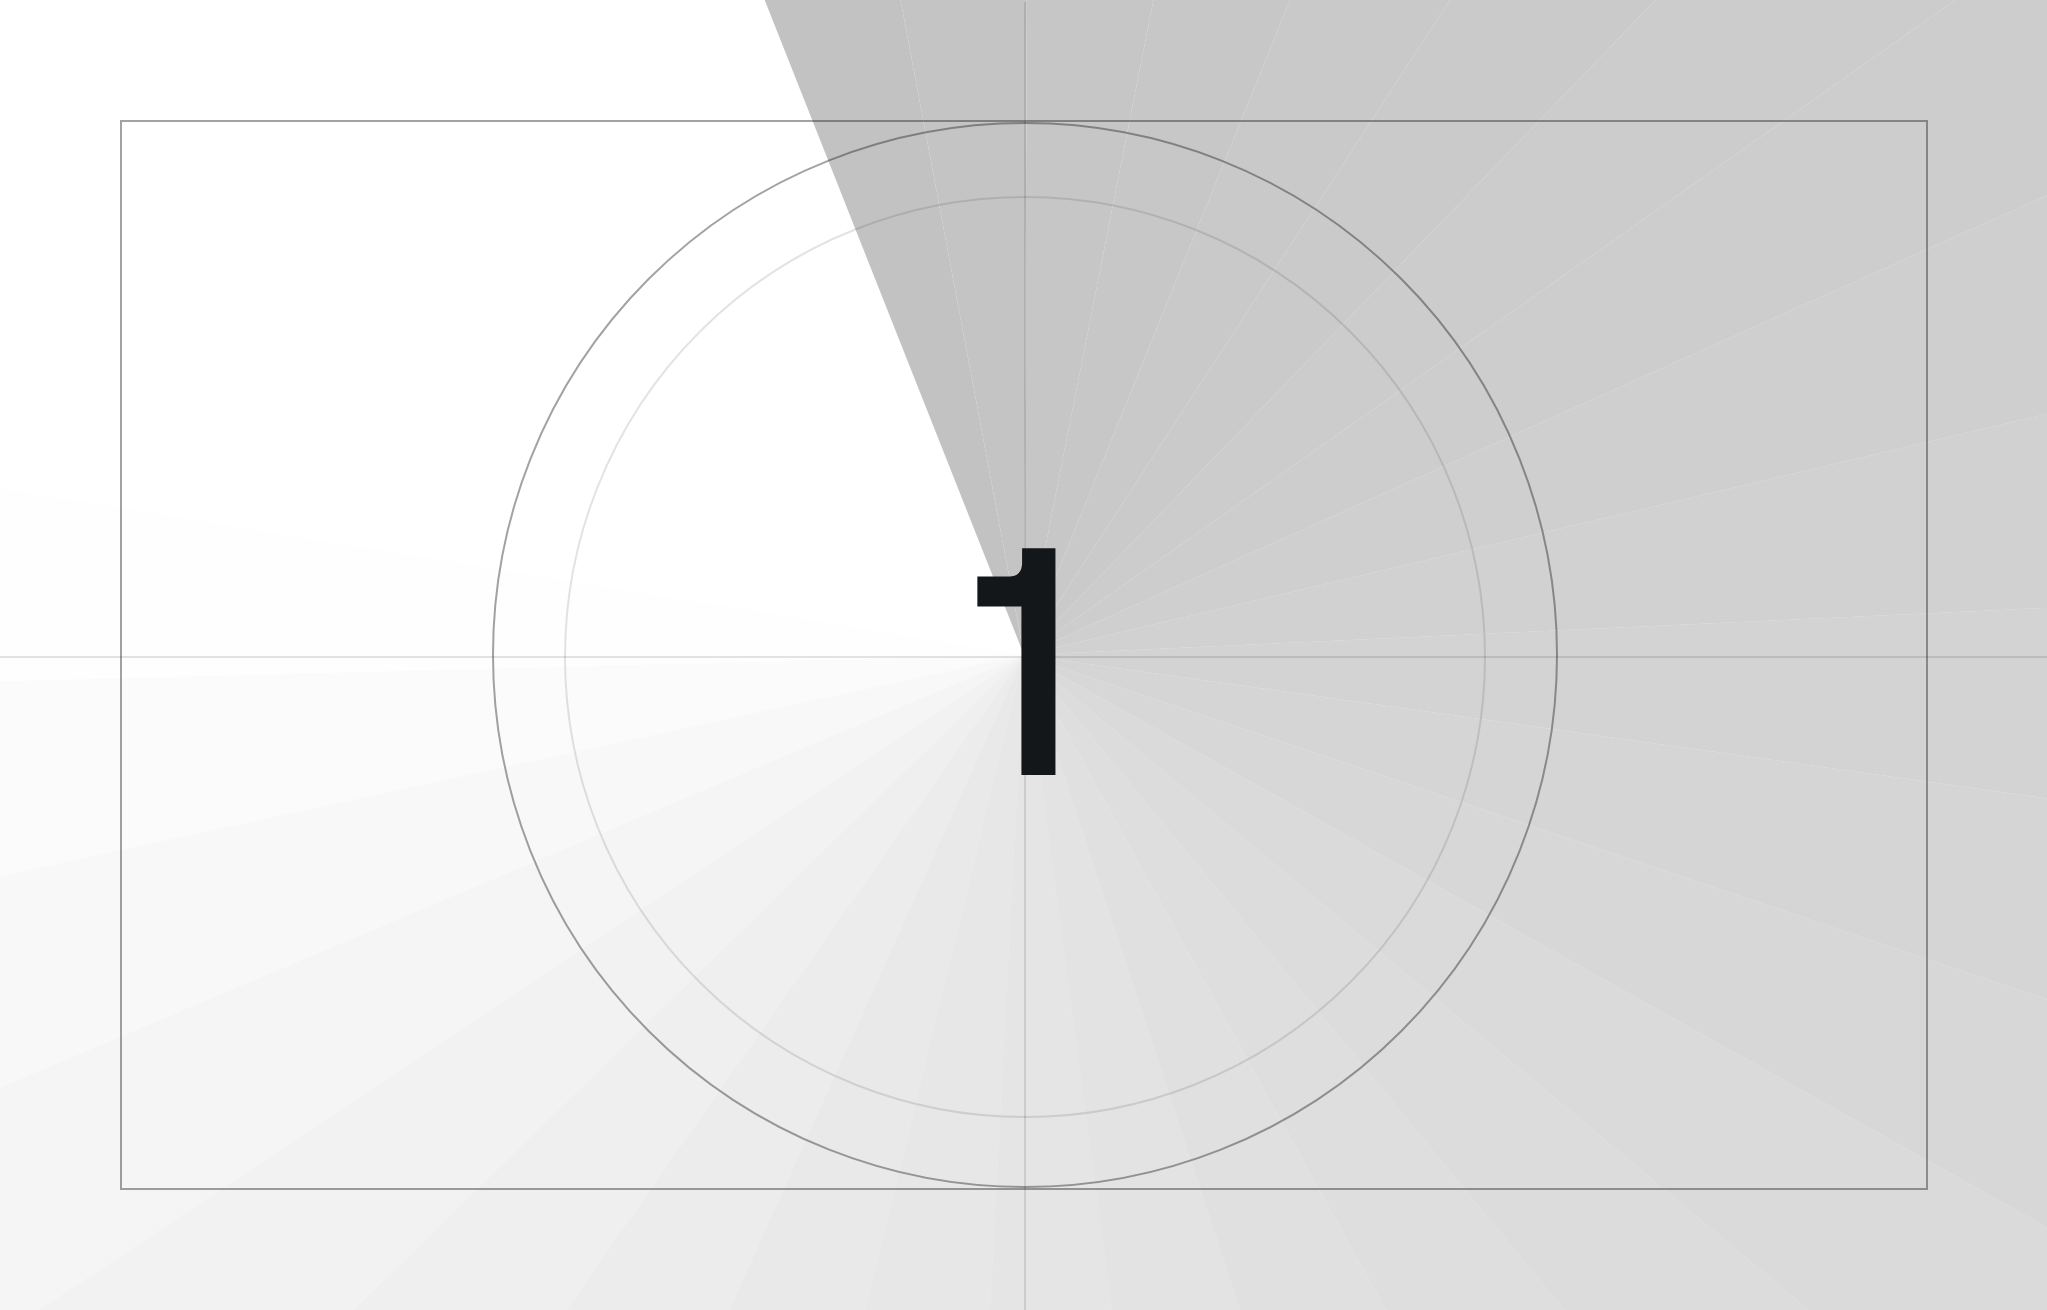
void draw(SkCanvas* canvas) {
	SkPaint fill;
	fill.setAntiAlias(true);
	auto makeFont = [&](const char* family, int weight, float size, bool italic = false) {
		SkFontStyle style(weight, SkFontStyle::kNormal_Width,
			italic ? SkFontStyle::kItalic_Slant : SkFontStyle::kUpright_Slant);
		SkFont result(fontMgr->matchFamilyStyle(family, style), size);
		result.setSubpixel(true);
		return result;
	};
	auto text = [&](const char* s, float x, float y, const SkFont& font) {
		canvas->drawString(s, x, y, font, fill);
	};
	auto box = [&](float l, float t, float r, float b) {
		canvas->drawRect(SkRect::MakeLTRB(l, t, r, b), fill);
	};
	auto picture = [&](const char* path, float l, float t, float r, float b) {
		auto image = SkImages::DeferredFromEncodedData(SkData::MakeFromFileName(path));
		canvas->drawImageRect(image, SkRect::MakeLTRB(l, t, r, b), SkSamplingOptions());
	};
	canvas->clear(0xFFFFFFFF);
	picture("image0.png", 0, 0, 2047, 1310);
	fill.setColor(0x1F13171A);
	box(0, 656, 2047, 658);
	box(1024, 2, 1026, 1310);
	fill.setStyle(SkPaint::kStroke_Style);
	fill.setStrokeWidth(2);
	fill.setColor(0x6613171A);
	canvas->drawRect(SkRect::MakeLTRB(121, 121, 1927, 1189), fill);
	canvas->drawCircle(1025, 655, 532, fill);
	fill.setColor(0x1F13171A);
	canvas->drawCircle(1025, 657, 460, fill);
	auto font1 = makeFont("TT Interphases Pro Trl", 500, 324);
	fill.setStyle(SkPaint::kFill_Style);
	fill.setColor(0xFF13171A);
	text("1", 967, 775, font1);
}
